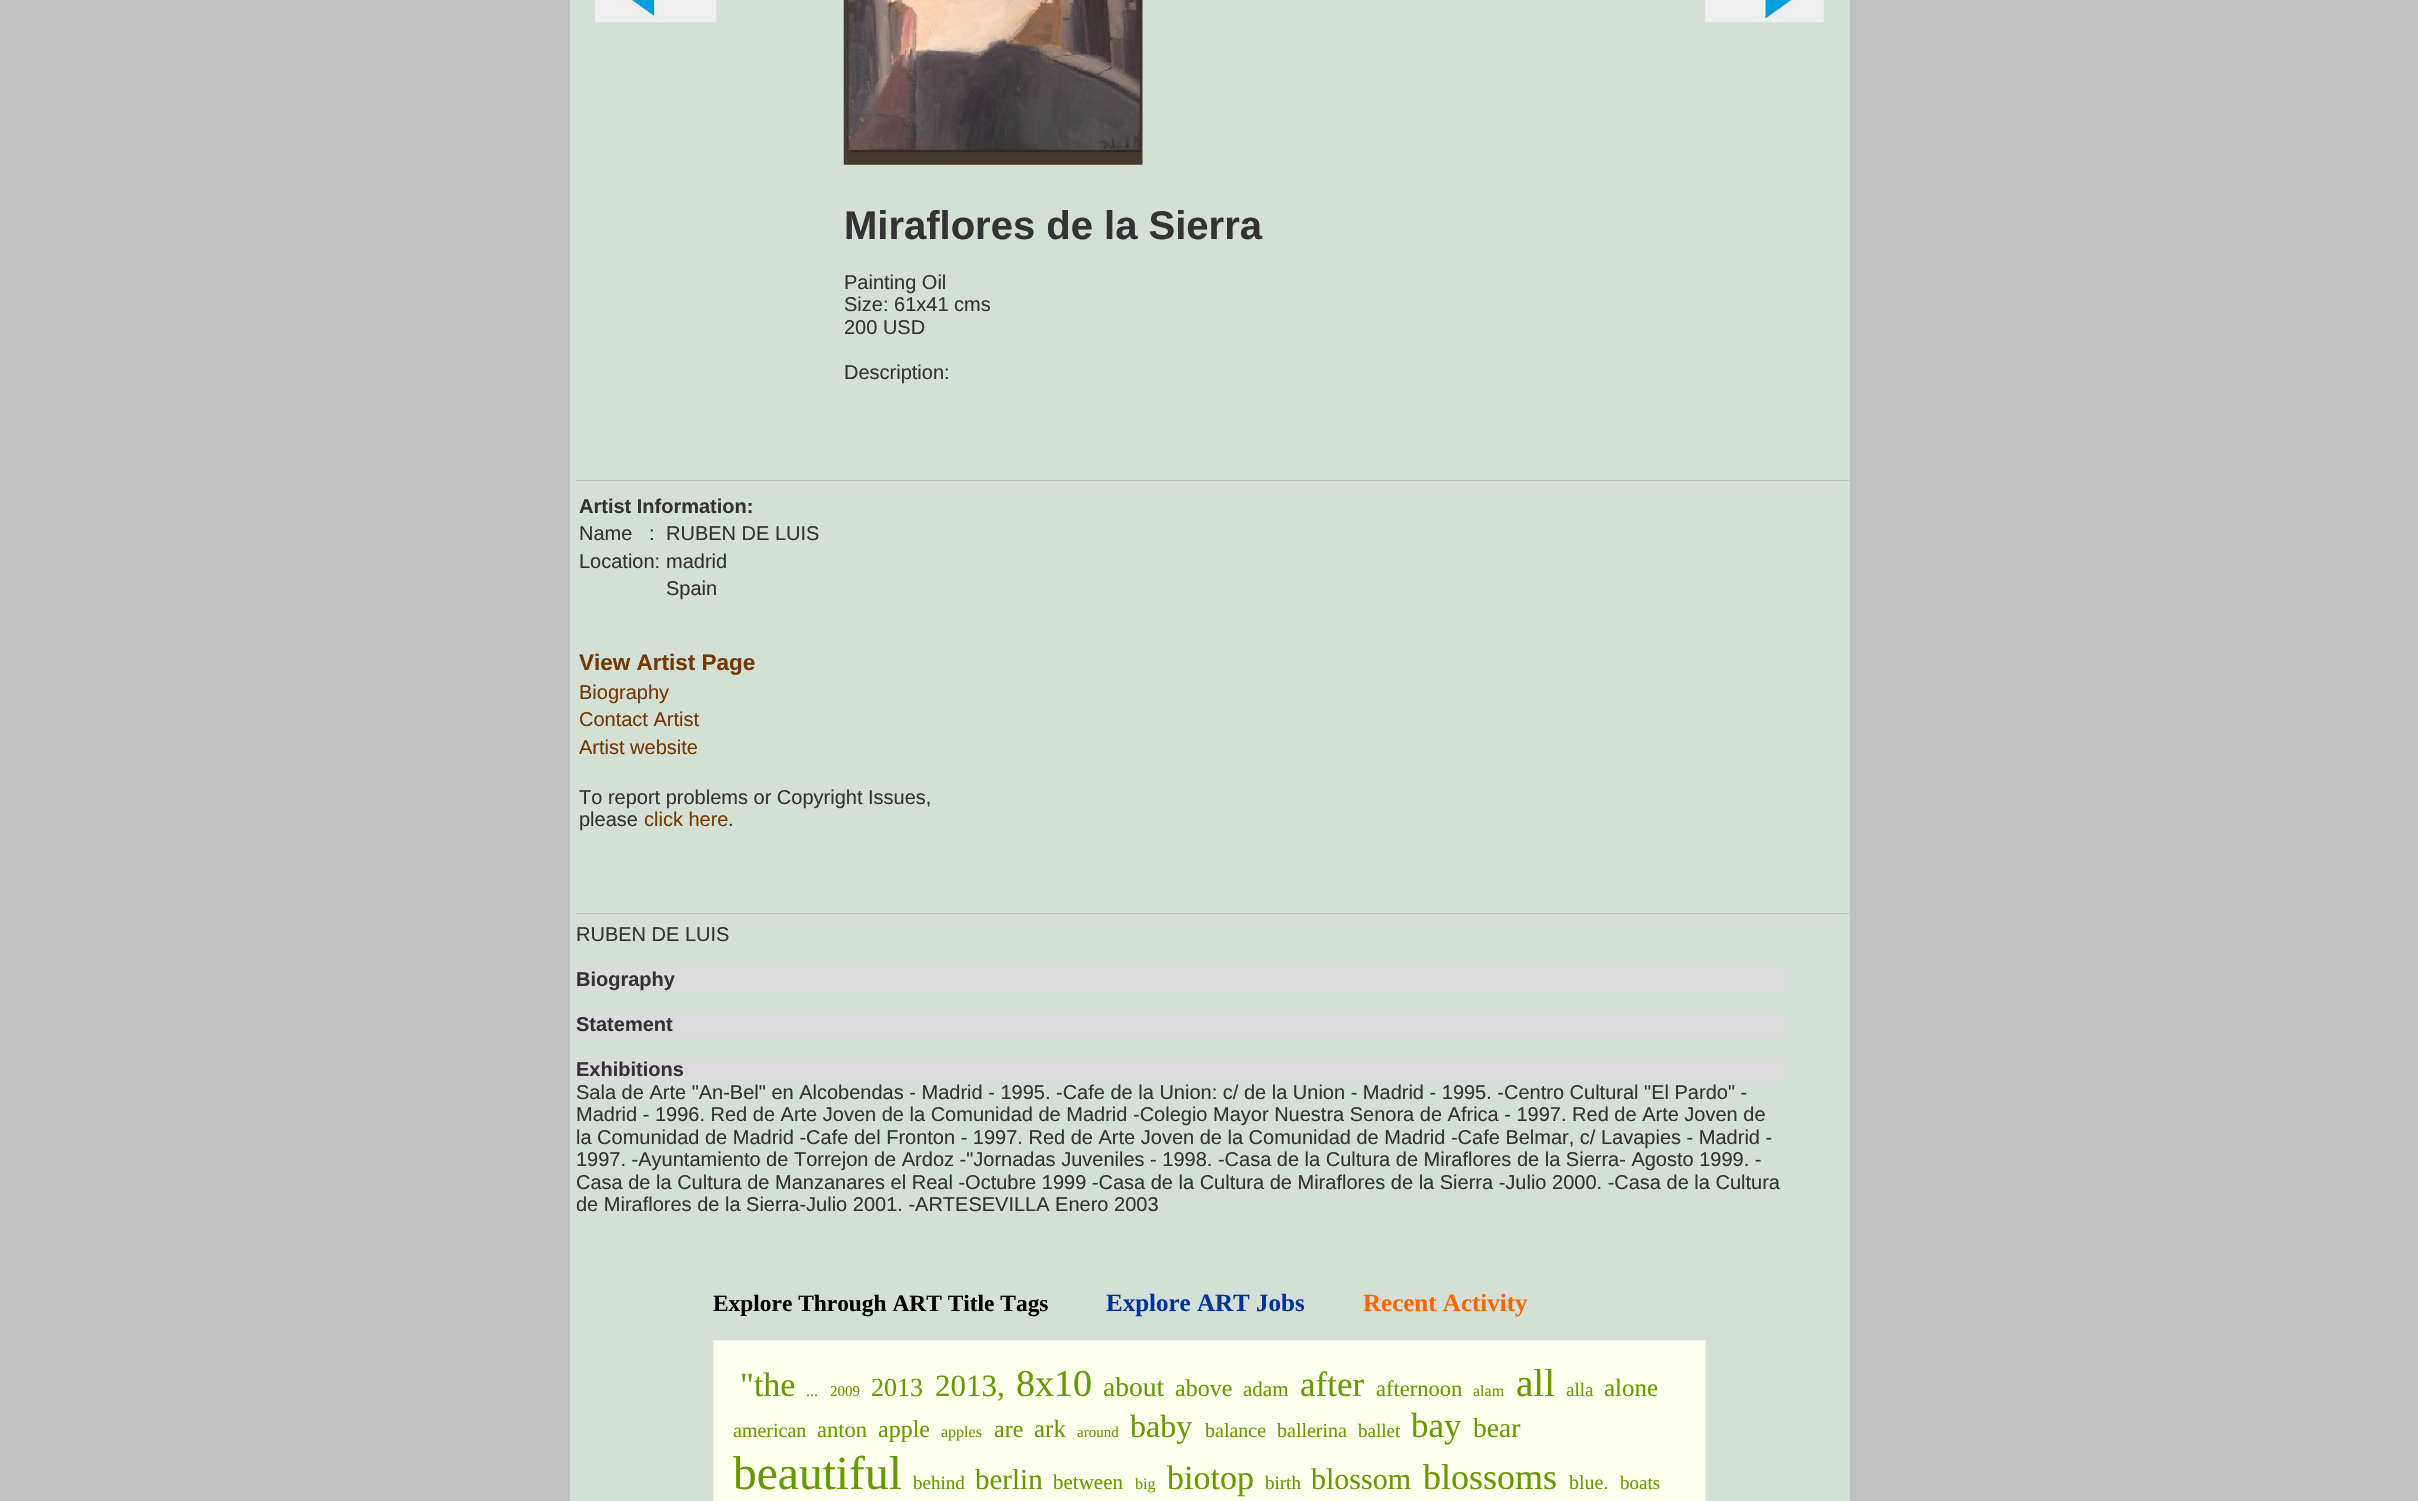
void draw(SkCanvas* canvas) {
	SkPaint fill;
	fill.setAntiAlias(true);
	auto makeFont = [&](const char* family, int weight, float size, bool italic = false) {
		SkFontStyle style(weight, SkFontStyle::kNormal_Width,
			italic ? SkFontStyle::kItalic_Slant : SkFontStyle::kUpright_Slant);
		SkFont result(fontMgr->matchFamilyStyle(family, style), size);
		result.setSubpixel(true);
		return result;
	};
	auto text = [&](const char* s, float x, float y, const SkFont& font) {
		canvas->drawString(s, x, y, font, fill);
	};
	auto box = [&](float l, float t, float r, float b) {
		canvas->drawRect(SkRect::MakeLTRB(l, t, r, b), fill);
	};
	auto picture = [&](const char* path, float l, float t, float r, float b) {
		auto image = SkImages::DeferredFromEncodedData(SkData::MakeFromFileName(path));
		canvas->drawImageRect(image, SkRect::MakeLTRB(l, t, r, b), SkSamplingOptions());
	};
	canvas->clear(0xFFC0C0C0);
	fill.setColor(0xFFD4DFD5);
	box(570, 0, 1850, 1501);
	picture("image0.png", 595, 0, 717, 23);
	picture("image1.png", 1705, 0, 1824, 23);
	picture("image2.png", 843, 0, 1143, 165);
	fill.setColor(0xFFBFBFBF);
	box(576, 480, 1850, 481);
	box(576, 913, 1850, 914);
	fill.setColor(0xFFDCDCDC);
	box(576, 969, 1786, 991);
	box(576, 1014, 1786, 1036);
	box(576, 1059, 1786, 1081);
	fill.setColor(0xFFFFFFEE);
	canvas->drawRect(SkRect::MakeLTRB(713.5f, 1340.5f, 1705.5f, 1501.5f), fill);
	fill.setStyle(SkPaint::kStroke_Style);
	fill.setStrokeWidth(1);
	fill.setColor(0xFFEEEEEE);
	canvas->drawRect(SkRect::MakeLTRB(713.5f, 1340.5f, 1705.5f, 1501.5f), fill);
	auto font1 = makeFont("Liberation Sans", 700, 40);
	fill.setStyle(SkPaint::kFill_Style);
	fill.setColor(0xFF333333);
	text("Miraflores de la Sierra", 844, 239, font1);
	auto font2 = makeFont("Liberation Sans", 400, 20);
	text("Painting Oil", 844, 289, font2);
	text("Size: 61x41 cms", 844, 311, font2);
	text("200 USD", 844, 334, font2);
	text("Description:", 844, 379, font2);
	auto font3 = makeFont("Liberation Sans", 700, 20);
	text("Artist Information:", 579, 513, font3);
	text("Name   :", 579, 540, font2);
	text("RUBEN DE LUIS", 666, 540, font2);
	text("Location:", 579, 568, font2);
	text("madrid", 666, 568, font2);
	text("Spain", 666, 595, font2);
	auto font4 = makeFont("Liberation Sans", 700, 22.5f);
	fill.setColor(0xFF733900);
	text("View Artist Page", 579, 670, font4);
	text("Biography", 579, 699, font2);
	text("Contact Artist", 579, 726, font2);
	text("Artist website", 579, 754, font2);
	fill.setColor(0xFF333333);
	text("To report problems or Copyright Issues,", 579, 804, font2);
	text("please", 579, 826, font2);
	fill.setColor(0xFF733900);
	text("click here", 644, 826, font2);
	fill.setColor(0xFF333333);
	text(".", 728, 826, font2);
	text("RUBEN DE LUIS", 576, 941, font2);
	text("Biography", 576, 986, font3);
	text("Statement", 576, 1031, font3);
	text("Exhibitions", 576, 1076, font3);
	text("Sala de Arte \"An-Bel\" en Alcobendas - Madrid - 1995. -Cafe de la Union: c/ de la Union - Madrid - 1995. -Centro Cultural \"El Pardo\" -", 576, 1099, font2);
	text("Madrid - 1996. Red de Arte Joven de la Comunidad de Madrid -Colegio Mayor Nuestra Senora de Africa - 1997. Red de Arte Joven de", 576, 1121, font2);
	text("la Comunidad de Madrid -Cafe del Fronton - 1997. Red de Arte Joven de la Comunidad de Madrid -Cafe Belmar, c/ Lavapies - Madrid -", 576, 1144, font2);
	text("1997. -Ayuntamiento de Torrejon de Ardoz -\"Jornadas Juveniles - 1998. -Casa de la Cultura de Miraflores de la Sierra- Agosto 1999. -", 576, 1166, font2);
	text("Casa de la Cultura de Manzanares el Real -Octubre 1999 -Casa de la Cultura de Miraflores de la Sierra -Julio 2000. -Casa de la Cultura", 576, 1189, font2);
	text("de Miraflores de la Sierra-Julio 2001. -ARTESEVILLA Enero 2003", 576, 1211, font2);
	auto font5 = makeFont("Liberation Serif", 700, 23.4f);
	fill.setColor(0xFF000000);
	text("Explore Through ART Title Tags", 713, 1311, font5);
	auto font6 = makeFont("Liberation Serif", 700, 25);
	fill.setColor(0xFF003399);
	text("Explore ART Jobs", 1106, 1311, font6);
	fill.setColor(0xFFFF6600);
	text("Recent Activity", 1363, 1311, font6);
	auto font7 = makeFont("Liberation Serif", 400, 34);
	fill.setColor(0xFF669900);
	text("\"the", 740, 1396, font7);
	auto font8 = makeFont("Liberation Serif", 400, 16);
	text("...", 806, 1396, font8);
	auto font9 = makeFont("Liberation Serif", 400, 15);
	text("2009", 830, 1396, font9);
	auto font10 = makeFont("Liberation Serif", 400, 26);
	text("2013", 871, 1396, font10);
	auto font11 = makeFont("Liberation Serif", 400, 31);
	text("2013,", 935, 1396, font11);
	auto font12 = makeFont("Liberation Serif", 400, 38);
	text("8x10", 1016, 1396, font12);
	auto font13 = makeFont("Liberation Serif", 400, 27.5f);
	text("about", 1103, 1396, font13);
	auto font14 = makeFont("Liberation Serif", 400, 24);
	text("above", 1175, 1396, font14);
	auto font15 = makeFont("Liberation Serif", 400, 21);
	text("adam", 1243, 1396, font15);
	auto font16 = makeFont("Liberation Serif", 400, 35);
	text("after", 1300, 1396, font16);
	auto font17 = makeFont("Liberation Serif", 400, 22.5f);
	text("afternoon", 1376, 1396, font17);
	text("alam", 1473, 1396, font8);
	auto font18 = makeFont("Liberation Serif", 400, 39);
	text("all", 1516, 1396, font18);
	auto font19 = makeFont("Liberation Serif", 400, 19);
	text("alla", 1566, 1396, font19);
	auto font20 = makeFont("Liberation Serif", 400, 25);
	text("alone", 1604, 1396, font20);
	auto font21 = makeFont("Liberation Serif", 400, 20);
	text("american", 733, 1437, font21);
	text("anton", 817, 1437, font17);
	text("apple", 878, 1437, font14);
	text("apples", 941, 1437, font8);
	text("are", 994, 1437, font14);
	text("ark", 1034, 1437, font20);
	text("around", 1077, 1437, font9);
	auto font22 = makeFont("Liberation Serif", 400, 32);
	text("baby", 1130, 1437, font22);
	text("balance", 1205, 1437, font21);
	text("ballerina", 1277, 1437, font21);
	text("ballet", 1358, 1437, font19);
	text("bay", 1411, 1437, font16);
	text("bear", 1473, 1437, font13);
	auto font23 = makeFont("Liberation Serif", 400, 47.5f);
	text("beautiful", 733, 1489, font23);
	text("behind", 913, 1489, font19);
	auto font24 = makeFont("Liberation Serif", 400, 29);
	text("berlin", 975, 1489, font24);
	text("between", 1053, 1489, font15);
	text("big", 1135, 1489, font8);
	text("biotop", 1167, 1489, font7);
	text("birth", 1265, 1489, font19);
	auto font25 = makeFont("Liberation Serif", 400, 30);
	text("blossom", 1311, 1489, font25);
	auto font26 = makeFont("Liberation Serif", 400, 36);
	text("blossoms", 1423, 1489, font26);
	text("blue.", 1569, 1489, font21);
	text("boats", 1620, 1489, font19);
}
